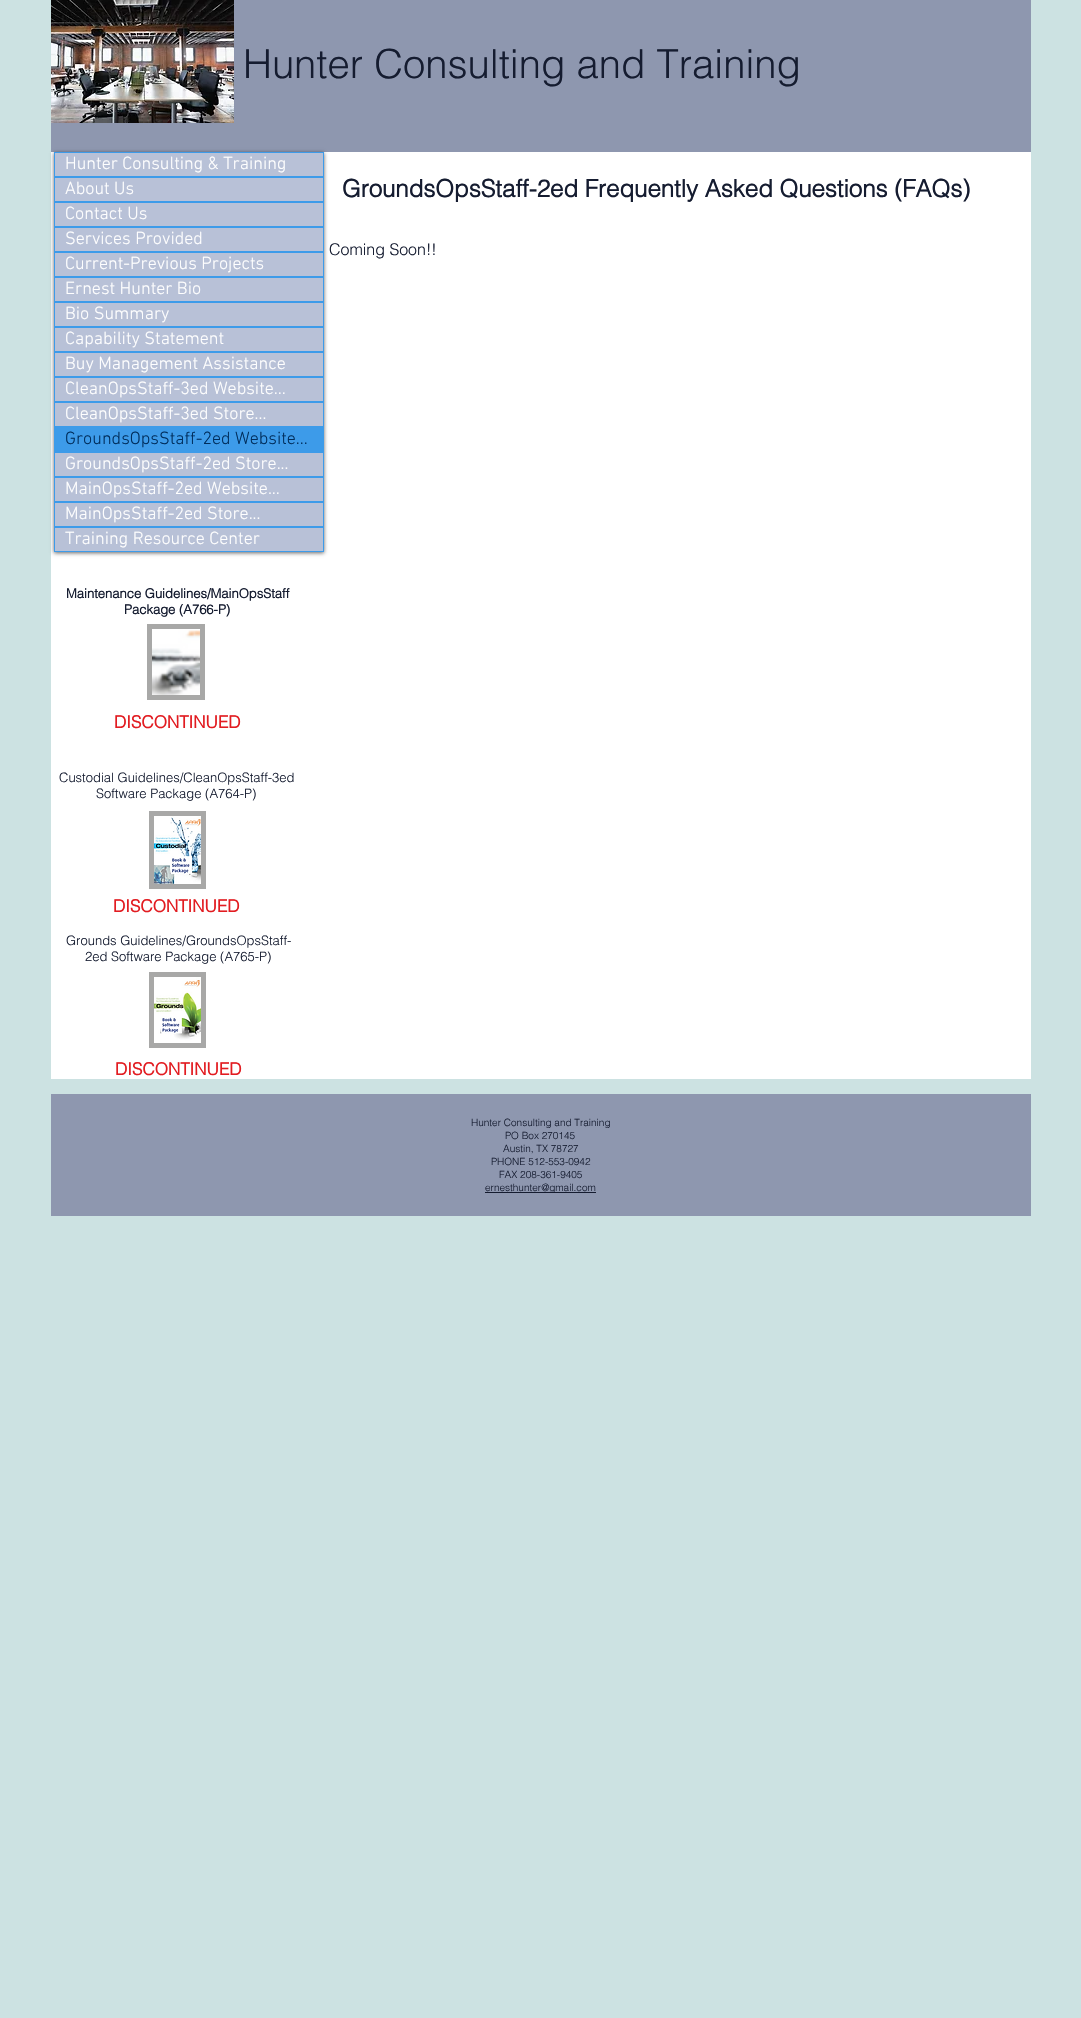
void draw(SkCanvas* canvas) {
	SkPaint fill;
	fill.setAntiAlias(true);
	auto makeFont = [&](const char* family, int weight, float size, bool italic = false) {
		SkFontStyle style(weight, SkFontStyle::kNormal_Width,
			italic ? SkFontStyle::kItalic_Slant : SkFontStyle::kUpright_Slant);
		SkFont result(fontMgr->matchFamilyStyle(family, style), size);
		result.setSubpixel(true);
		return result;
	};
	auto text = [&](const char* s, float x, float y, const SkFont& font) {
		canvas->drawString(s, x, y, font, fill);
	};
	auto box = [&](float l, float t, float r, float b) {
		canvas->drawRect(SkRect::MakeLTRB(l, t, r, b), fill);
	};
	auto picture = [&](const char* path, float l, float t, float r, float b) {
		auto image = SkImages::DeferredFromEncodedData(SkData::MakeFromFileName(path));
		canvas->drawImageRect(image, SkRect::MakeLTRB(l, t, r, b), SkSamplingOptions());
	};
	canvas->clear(0xFFCCE2E2);
	fill.setColor(0xFF8E97AF);
	box(51, 0, 1031, 152);
	picture("image0.png", 51, 0, 234, 123);
	fill.setColor(0xFFFFFFFF);
	box(51, 152, 1031, 1079);
	fill.setColor(0x99000000);
	fill.setMaskFilter(SkMaskFilter::MakeBlur(kNormal_SkBlurStyle, 2));
	canvas->drawRect(SkRect::MakeLTRB(54, 153, 324, 553), fill);
	fill.setMaskFilter(nullptr);
	fill.setStyle(SkPaint::kStroke_Style);
	fill.setStrokeWidth(1);
	fill.setColor(0xFF3D9BE9);
	canvas->drawRect(SkRect::MakeLTRB(54.5f, 152.5f, 323.5f, 551.5f), fill);
	fill.setStyle(SkPaint::kFill_Style);
	box(55, 176, 323, 178);
	fill.setColor(0xFFB8C1D7);
	box(55, 153, 323, 176);
	fill.setColor(0xFF3D9BE9);
	box(55, 201, 323, 203);
	fill.setColor(0xFFB8C1D7);
	box(55, 178, 323, 201);
	fill.setColor(0xFF3D9BE9);
	box(55, 226, 323, 228);
	fill.setColor(0xFFB8C1D7);
	box(55, 203, 323, 226);
	fill.setColor(0xFF3D9BE9);
	box(55, 251, 323, 253);
	fill.setColor(0xFFB8C1D7);
	box(55, 228, 323, 251);
	fill.setColor(0xFF3D9BE9);
	box(55, 276, 323, 278);
	fill.setColor(0xFFB8C1D7);
	box(55, 253, 323, 276);
	fill.setColor(0xFF3D9BE9);
	box(55, 301, 323, 303);
	fill.setColor(0xFFB8C1D7);
	box(55, 278, 323, 301);
	fill.setColor(0xFF3D9BE9);
	box(55, 326, 323, 328);
	fill.setColor(0xFFB8C1D7);
	box(55, 303, 323, 326);
	fill.setColor(0xFF3D9BE9);
	box(55, 351, 323, 353);
	fill.setColor(0xFFB8C1D7);
	box(55, 328, 323, 351);
	fill.setColor(0xFF3D9BE9);
	box(55, 376, 323, 378);
	fill.setColor(0xFFB8C1D7);
	box(55, 353, 323, 376);
	fill.setColor(0xFF3D9BE9);
	box(55, 401, 323, 403);
	fill.setColor(0xFFB8C1D7);
	box(55, 378, 323, 401);
	fill.setColor(0xFF3D9BE9);
	box(55, 426, 323, 428);
	fill.setColor(0xFFB8C1D7);
	box(55, 403, 323, 426);
	fill.setColor(0xFF3D9BE9);
	box(55, 428, 323, 453);
	box(55, 476, 323, 478);
	fill.setColor(0xFFB8C1D7);
	box(55, 453, 323, 476);
	fill.setColor(0xFF3D9BE9);
	box(55, 501, 323, 503);
	fill.setColor(0xFFB8C1D7);
	box(55, 478, 323, 501);
	fill.setColor(0xFF3D9BE9);
	box(55, 526, 323, 528);
	fill.setColor(0xFFB8C1D7);
	box(55, 503, 323, 526);
	box(55, 528, 323, 551);
	fill.setColor(0xFFA8A8A7);
	box(147, 624, 205, 700);
	picture("image1.png", 152, 629, 200, 695);
	box(149, 811, 206, 889);
	picture("image2.png", 154, 816, 201, 884);
	box(149, 972, 206, 1048);
	picture("image3.png", 154, 977, 201, 1043);
	fill.setColor(0xFF8E97AF);
	box(51, 1094, 1031, 1216);
	fill.setColor(0xFF151C30);
	box(485, 1192, 596, 1193);
	auto font1 = makeFont("helvetica", 300, 40);
	text("Hunter Consulting and Training", 243, 78, font1);
	auto font2 = makeFont("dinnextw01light", 300, 18);
	fill.setColor(0xFFFFFFFF);
	text("Hunter Consulting & Training", 65, 169, font2);
	text("About Us", 65, 194, font2);
	text("Contact Us", 65, 219, font2);
	text("Services Provided", 65, 244, font2);
	text("Current-Previous Projects", 65, 269, font2);
	text("Ernest Hunter Bio", 65, 294, font2);
	text("Bio Summary", 65, 319, font2);
	text("Capability Statement", 65, 344, font2);
	text("Buy Management Assistance", 65, 369, font2);
	text("CleanOpsStaff-3ed Website...", 65, 394, font2);
	text("CleanOpsStaff-3ed Store...", 65, 419, font2);
	fill.setColor(0xFF002E5D);
	text("GroundsOpsStaff-2ed Website...", 65, 444, font2);
	fill.setColor(0xFFFFFFFF);
	text("GroundsOpsStaff-2ed Store...", 65, 469, font2);
	text("MainOpsStaff-2ed Website...", 65, 494, font2);
	text("MainOpsStaff-2ed Store...", 65, 519, font2);
	text("Training Resource Center", 65, 544, font2);
	auto font3 = makeFont("helvetica", 700, 13);
	fill.setColor(0xFF151C30);
	text("Maintenance Guidelines/MainOpsStaff", 66, 598, font3);
	text("Package (A766-P)", 124, 614, font3);
	auto font4 = makeFont("helvetica", 700, 17);
	fill.setColor(0xFFE21C21);
	text("DISCONTINUED", 114, 728, font4);
	auto font5 = makeFont("helvetica", 300, 13);
	fill.setColor(0xFF151C30);
	text("Custodial Guidelines/CleanOpsStaff-3ed", 59, 782, font5);
	text("Software Package (A764-P)", 96, 798, font5);
	fill.setColor(0xFFE21C21);
	text("DISCONTINUED", 113, 912, font4);
	fill.setColor(0xFF151C30);
	text("Grounds Guidelines/GroundsOpsStaff-", 66, 945, font5);
	text("2ed Software Package (A765-P)", 85, 961, font5);
	fill.setColor(0xFFE21C21);
	text("DISCONTINUED", 115, 1075, font4);
	auto font6 = makeFont("helvetica", 700, 24);
	fill.setColor(0xFF151C30);
	text("GroundsOpsStaff-2ed Frequently Asked Questions (FAQs)", 342, 197, font6);
	auto font7 = makeFont("helvetica", 300, 16);
	text("Coming Soon!!", 329, 255, font7);
	auto font8 = makeFont("helvetica", 300, 10);
	text("Hunter Consulting and Training", 471, 1126, font8);
	text("PO Box 270145", 505, 1139, font8);
	text("Austin, TX 78727", 503, 1152, font8);
	text("PHONE 512-553-0942", 491, 1165, font8);
	text("FAX 208-361-9405", 499, 1178, font8);
	text("ernesthunter@gmail.com", 485, 1191, font8);
}
